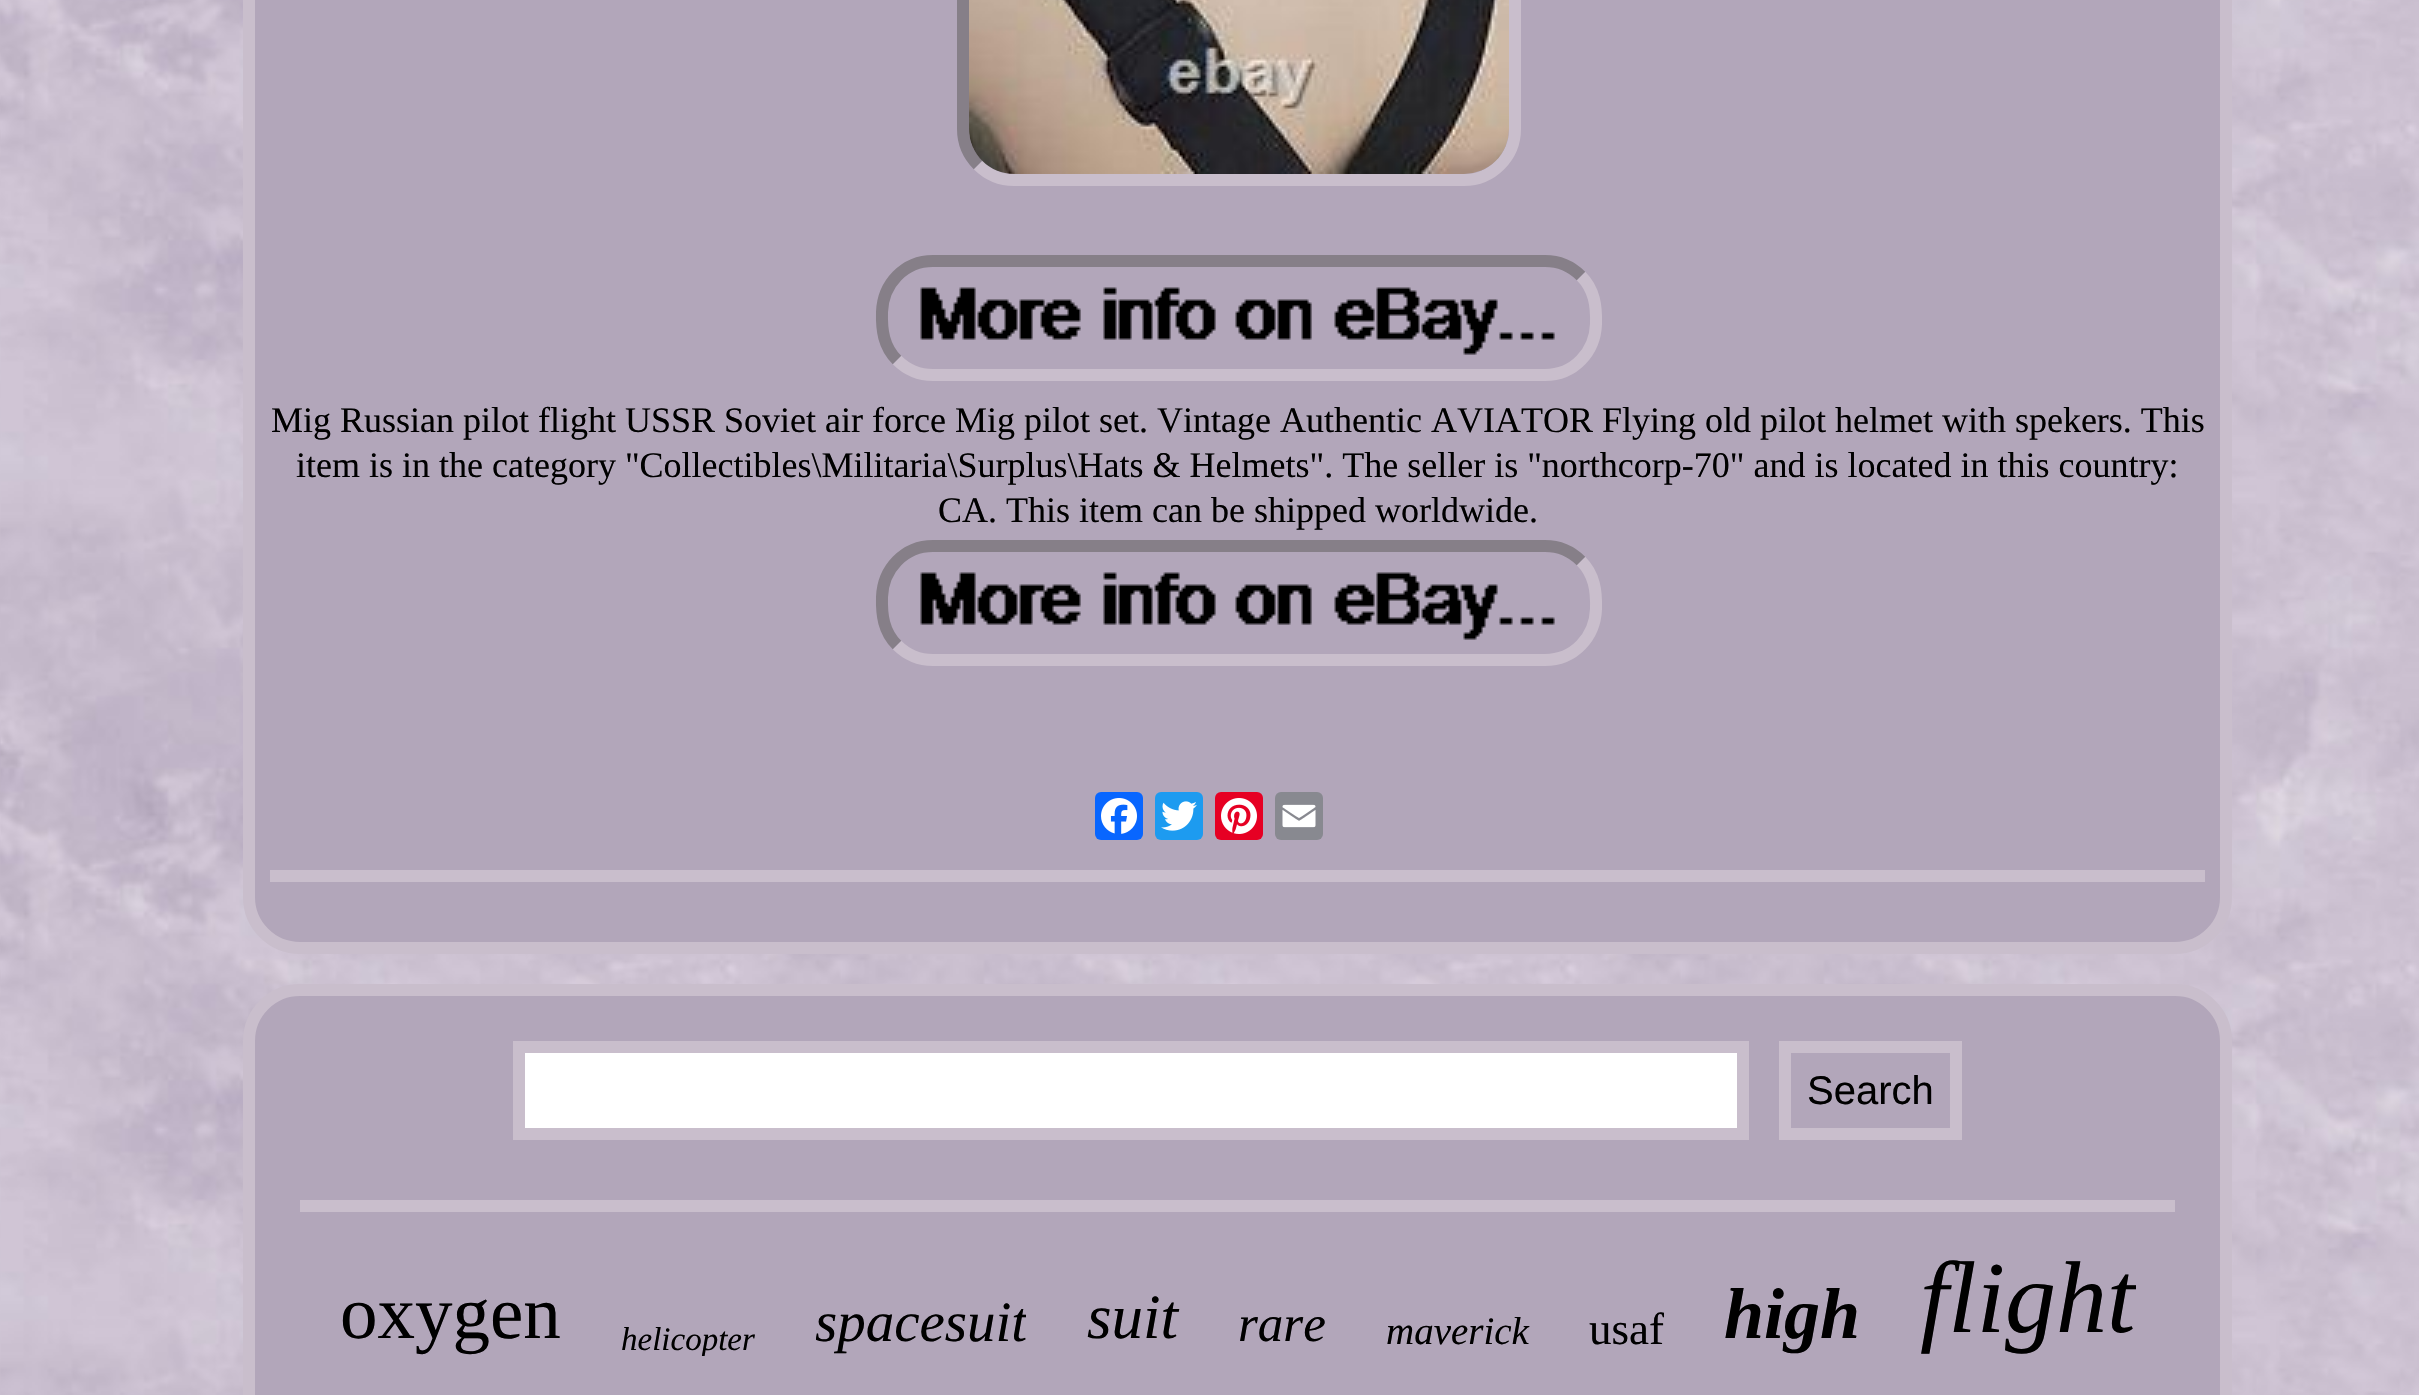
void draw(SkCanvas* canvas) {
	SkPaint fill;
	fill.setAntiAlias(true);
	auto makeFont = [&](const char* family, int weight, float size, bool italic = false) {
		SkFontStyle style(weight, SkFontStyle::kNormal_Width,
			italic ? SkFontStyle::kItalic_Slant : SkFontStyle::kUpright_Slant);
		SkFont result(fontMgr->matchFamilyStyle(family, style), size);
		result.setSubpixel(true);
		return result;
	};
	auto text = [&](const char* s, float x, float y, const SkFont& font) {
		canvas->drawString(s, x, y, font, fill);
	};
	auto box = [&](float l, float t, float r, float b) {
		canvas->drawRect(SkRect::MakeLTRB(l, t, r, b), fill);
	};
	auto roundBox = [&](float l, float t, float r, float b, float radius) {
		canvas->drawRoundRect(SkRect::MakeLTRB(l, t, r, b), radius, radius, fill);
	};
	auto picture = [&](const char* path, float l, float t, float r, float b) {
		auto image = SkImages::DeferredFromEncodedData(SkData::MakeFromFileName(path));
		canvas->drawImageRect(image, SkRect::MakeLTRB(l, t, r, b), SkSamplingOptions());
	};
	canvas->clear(0xFFFFFFFF);
	picture("image0.png", 0, 0, 2419, 1395);
	fill.setColor(0xFFB2A6BA);
	canvas->drawRoundRect(SkRect::MakeLTRB(249, -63, 2226, 948), 51, 51, fill);
	fill.setStyle(SkPaint::kStroke_Style);
	fill.setStrokeWidth(12);
	fill.setColor(0xFFC9BECC);
	canvas->drawRoundRect(SkRect::MakeLTRB(249, -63, 2226, 948), 51, 51, fill);
	canvas->drawPath(SkPathBuilder().moveTo(1500, -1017).cubicTo(1509.5f, -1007.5f, 1515, -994.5f, 1515, -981).lineTo(1515, 129).cubicTo(1515, 142.5f, 1509.5f, 155.5f, 1500, 165).cubicTo(1490.5f, 174.5f, 1477.5f, 180, 1464, 180).lineTo(1014, 180).cubicTo(1000.5f, 180, 987.5f, 174.5f, 978, 165).detach(), fill);
	fill.setColor(0xFF867F88);
	canvas->drawPath(SkPathBuilder().moveTo(978, 165).cubicTo(968.5f, 155.5f, 963, 142.5f, 963, 129).lineTo(963, -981).cubicTo(963, -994.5f, 968.5f, -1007.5f, 978, -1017).cubicTo(987.5f, -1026.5f, 1000.5f, -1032, 1014, -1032).lineTo(1464, -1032).cubicTo(1477.5f, -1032, 1490.5f, -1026.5f, 1500, -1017).detach(), fill);
	picture("image1.png", 969, 0, 1509, 174);
	fill.setColor(0xFFC9BECC);
	canvas->drawPath(SkPathBuilder().moveTo(1581, 276).cubicTo(1594.5f, 289.5f, 1596.5f, 306, 1596, 324).cubicTo(1595, 352, 1574, 375, 1545, 375).lineTo(933, 375).cubicTo(919.5f, 375, 906.5f, 369.5f, 897, 360).detach(), fill);
	fill.setColor(0xFF867F88);
	canvas->drawPath(SkPathBuilder().moveTo(897, 360).cubicTo(883.5f, 346.5f, 881.5f, 330, 882, 312).cubicTo(883, 284, 904, 261, 933, 261).lineTo(1545, 261).cubicTo(1558.5f, 261, 1571.5f, 266.5f, 1581, 276).detach(), fill);
	picture("image2.png", 920, 287, 1555, 355);
	fill.setColor(0xFFC9BECC);
	canvas->drawPath(SkPathBuilder().moveTo(1581, 561).cubicTo(1594.5f, 574.5f, 1596.5f, 591, 1596, 609).cubicTo(1595, 637, 1574, 660, 1545, 660).lineTo(933, 660).cubicTo(919.5f, 660, 906.5f, 654.5f, 897, 645).detach(), fill);
	fill.setColor(0xFF867F88);
	canvas->drawPath(SkPathBuilder().moveTo(897, 645).cubicTo(883.5f, 631.5f, 881.5f, 615, 882, 597).cubicTo(883, 569, 904, 546, 933, 546).lineTo(1545, 546).cubicTo(1558.5f, 546, 1571.5f, 551.5f, 1581, 561).detach(), fill);
	picture("image2.png", 920, 572, 1555, 640);
	fill.setStyle(SkPaint::kFill_Style);
	fill.setColor(0xFF0866FF);
	roundBox(1095, 792, 1143, 840, 6);
	picture("image3.png", 1101, 798, 1137, 834);
	fill.setColor(0xFF1D9BF0);
	roundBox(1155, 792, 1203, 840, 6);
	picture("image4.png", 1161, 801, 1197, 831);
	fill.setColor(0xFFE60023);
	roundBox(1215, 792, 1263, 840, 6);
	picture("image5.png", 1221, 798, 1257, 834);
	fill.setColor(0xFF888990);
	roundBox(1275, 792, 1323, 840, 6);
	picture("image6.png", 1282, 804, 1316, 828);
	fill.setColor(0xFFC9BECC);
	box(270, 870, 2205, 882);
	fill.setColor(0xFFB2A6BA);
	canvas->drawRoundRect(SkRect::MakeLTRB(249, 990, 2226, 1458), 51, 51, fill);
	fill.setStyle(SkPaint::kStroke_Style);
	fill.setColor(0xFFC9BECC);
	canvas->drawRoundRect(SkRect::MakeLTRB(249, 990, 2226, 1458), 51, 51, fill);
	fill.setStyle(SkPaint::kFill_Style);
	fill.setColor(0xFFFFFFFF);
	box(525, 1053, 1737, 1128);
	fill.setStyle(SkPaint::kStroke_Style);
	fill.setColor(0xFFC9BECC);
	canvas->drawPath(SkPathBuilder().moveTo(519, 1047).lineTo(1743, 1047).lineTo(1743, 1134).lineTo(519, 1134).close().detach(), fill);
	canvas->drawPath(SkPathBuilder().moveTo(1785, 1047).lineTo(1956, 1047).lineTo(1956, 1134).lineTo(1785, 1134).close().detach(), fill);
	fill.setStyle(SkPaint::kFill_Style);
	box(300, 1200, 2175, 1212);
	auto font1 = makeFont("Liberation Serif", 400, 36);
	fill.setColor(0xFF000000);
	text("Mig Russian pilot flight USSR Soviet air force Mig pilot set. Vintage Authentic AVIATOR Flying old pilot helmet with spekers. This", 271, 432, font1);
	text("item is in the category \"Collectibles\\Militaria\\Surplus\\Hats & Helmets\". The seller is \"northcorp-70\" and is located in this country:", 296, 477, font1);
	text("CA. This item can be shipped worldwide.", 938, 522, font1);
	auto font2 = makeFont("Liberation Sans", 400, 40);
	text("Search", 1807, 1104, font2);
	auto font3 = makeFont("Liberation Serif", 400, 75);
	text("oxygen", 340, 1338, font3);
	canvas->save();
	canvas->clipRect(SkRect::MakeLTRB(621, 1320, 756, 1356));
	auto font4 = makeFont("Liberation Serif", 400, 33, true);
	text("helicopter", 621, 1350, font4);
	canvas->restore();
	canvas->save();
	canvas->clipRect(SkRect::MakeLTRB(816, 1290, 1026, 1356));
	auto font5 = makeFont("Liberation Serif", 400, 57, true);
	text("spacesuit", 815, 1341, font5);
	canvas->restore();
	auto font6 = makeFont("Liberation Serif", 400, 63, true);
	text("suit", 1087, 1338, font6);
	auto font7 = makeFont("Liberation Serif", 400, 51, true);
	text("rare", 1238, 1341, font7);
	auto font8 = makeFont("Liberation Serif", 400, 39, true);
	text("maverick", 1386, 1344, font8);
	auto font9 = makeFont("Liberation Serif", 400, 45);
	text("usaf", 1589, 1344, font9);
	auto font10 = makeFont("Liberation Serif", 700, 72, true);
	text("high", 1724, 1338, font10);
	canvas->save();
	canvas->clipRect(SkRect::MakeLTRB(1920, 1242, 2136, 1356));
	auto font11 = makeFont("Liberation Serif", 400, 102, true);
	text("flight", 1920, 1332, font11);
	canvas->restore();
}
